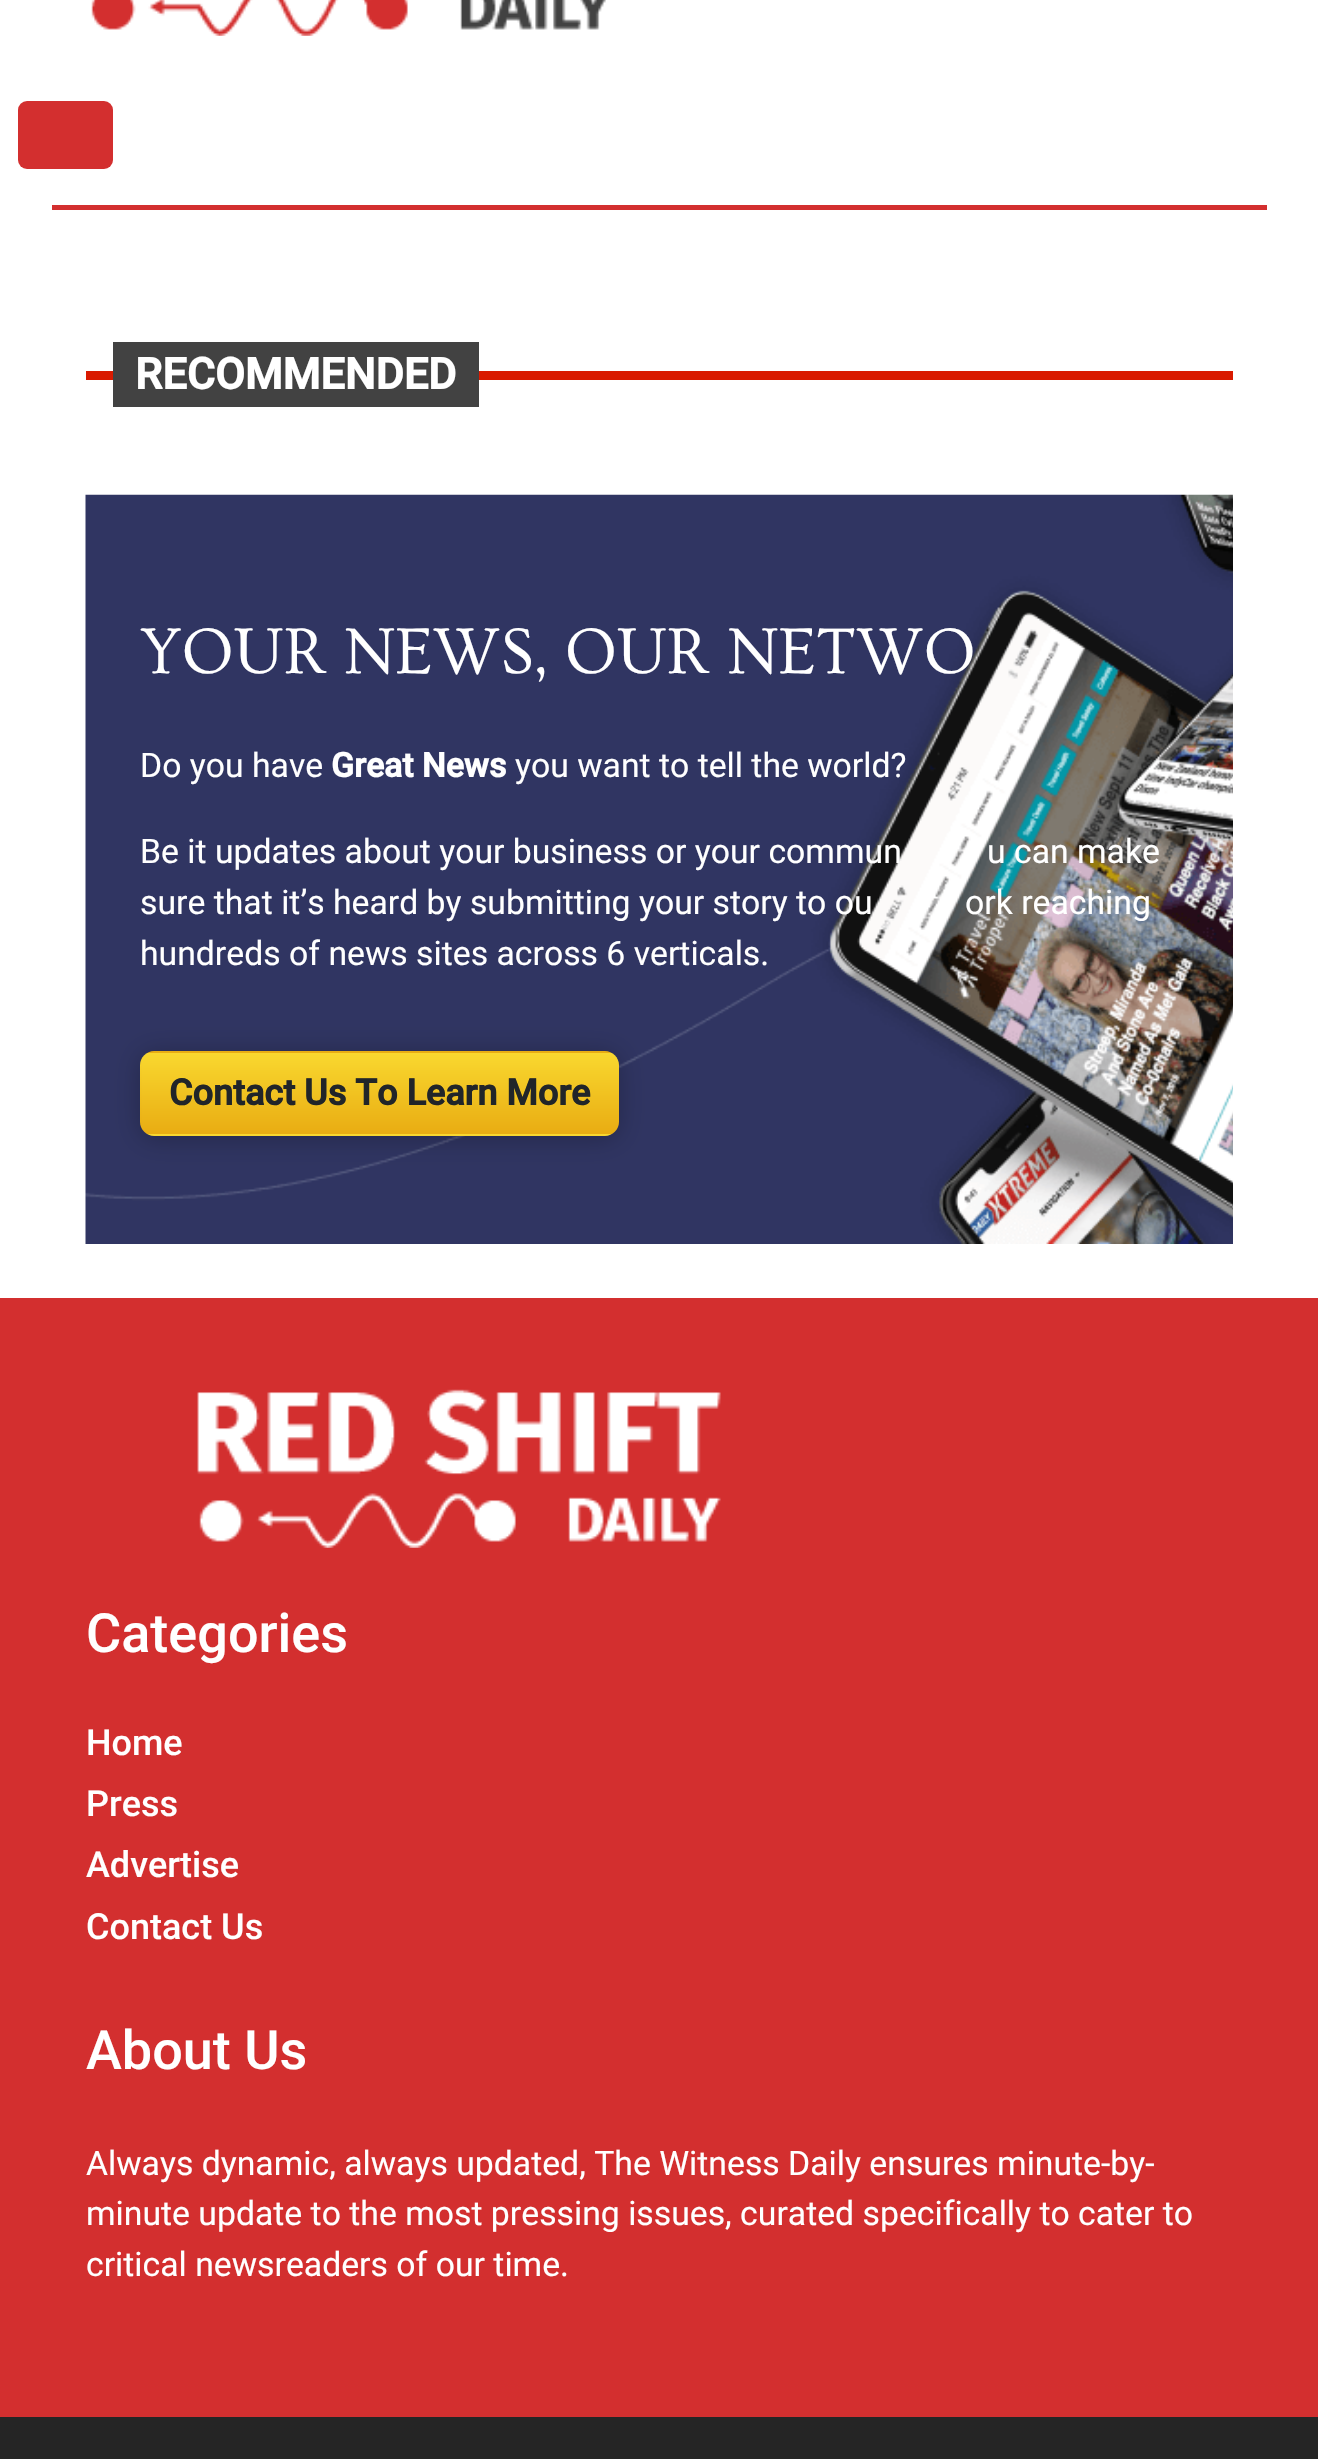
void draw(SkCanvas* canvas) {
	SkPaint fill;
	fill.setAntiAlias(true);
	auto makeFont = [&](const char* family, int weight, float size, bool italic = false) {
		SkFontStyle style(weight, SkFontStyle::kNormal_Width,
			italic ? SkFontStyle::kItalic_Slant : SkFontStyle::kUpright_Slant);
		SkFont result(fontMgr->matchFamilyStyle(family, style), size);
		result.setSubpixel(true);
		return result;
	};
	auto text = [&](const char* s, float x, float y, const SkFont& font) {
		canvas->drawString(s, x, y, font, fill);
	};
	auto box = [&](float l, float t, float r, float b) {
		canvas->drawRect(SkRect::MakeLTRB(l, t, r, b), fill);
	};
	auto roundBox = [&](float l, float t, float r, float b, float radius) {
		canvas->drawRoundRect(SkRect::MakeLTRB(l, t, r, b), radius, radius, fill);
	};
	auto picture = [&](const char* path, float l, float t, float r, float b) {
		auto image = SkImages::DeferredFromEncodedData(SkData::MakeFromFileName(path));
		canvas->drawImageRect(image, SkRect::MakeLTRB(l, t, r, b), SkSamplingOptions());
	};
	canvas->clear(0xFFFFFFFF);
	picture("image0.png", 91, 0, 606, 36);
	fill.setColor(0xFFD32F2F);
	box(52, 205, 1267, 210);
	roundBox(18, 101, 113, 169, 9);
	fill.setColor(0xFFD91A00);
	box(86, 371, 1233, 380);
	fill.setColor(0xFF424242);
	box(113, 342, 479, 407);
	picture("image1.png", 85, 494, 1233, 1244);
	fill.setColor(0x40000000);
	fill.setMaskFilter(SkMaskFilter::MakeBlur(kNormal_SkBlurStyle, 13.5f));
	canvas->drawRoundRect(SkRect::MakeLTRB(140, 1053, 619, 1139), 14, 14, fill);
	fill.setMaskFilter(nullptr);
	canvas->save();
	canvas->clipPath(SkPathBuilder().moveTo(154, 1051).lineTo(605, 1051).cubicTo(612.5f, 1051, 619, 1057.5f, 619, 1065).lineTo(619, 1122).cubicTo(619, 1129.5f, 612.5f, 1136, 605, 1136).lineTo(154, 1136).cubicTo(146.5f, 1136, 140, 1129.5f, 140, 1122).lineTo(140, 1065).cubicTo(140, 1057.5f, 146.5f, 1051, 154, 1051).close().detach(), true);
	{
		const SkColor colors[] = {0xFFF9D82F, 0xFFE9AD13};
		const float stops[] = {0.02f, 0.96f};
		const SkPoint ends[] = {{379, 970}, {379, 1055}};
		fill.setShader(SkGradientShader::MakeLinear(ends, colors, stops, 2, SkTileMode::kClamp));
		fill.setAlpha(255);
	}
	box(142, 1051, 617, 1053);
	{
		const SkColor colors[] = {0xFFF9D82F, 0xFFE9AD13};
		const float stops[] = {0.02f, 0.96f};
		const SkPoint ends[] = {{-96, 1051}, {-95, 1136}};
		fill.setShader(SkGradientShader::MakeLinear(ends, colors, stops, 2, SkTileMode::kClamp));
		fill.setAlpha(255);
	}
	box(140, 1053, 142, 1134);
	{
		const SkColor colors[] = {0xFFF9D82F, 0xFFE9AD13};
		const float stops[] = {0.02f, 0.96f};
		const SkPoint ends[] = {{379, 1051}, {379, 1136}};
		fill.setShader(SkGradientShader::MakeLinear(ends, colors, stops, 2, SkTileMode::kClamp));
		fill.setAlpha(255);
	}
	box(142, 1053, 617, 1134);
	{
		const SkColor colors[] = {0xFFF9D82F, 0xFFE9AD13};
		const float stops[] = {0.02f, 0.96f};
		const SkPoint ends[] = {{854, 1051}, {854, 1136}};
		fill.setShader(SkGradientShader::MakeLinear(ends, colors, stops, 2, SkTileMode::kClamp));
		fill.setAlpha(255);
	}
	box(617, 1053, 619, 1134);
	{
		const SkColor colors[] = {0xFFF9D82F, 0xFFE9AD13};
		const float stops[] = {0.02f, 0.96f};
		const SkPoint ends[] = {{379, 1132}, {379, 1217}};
		fill.setShader(SkGradientShader::MakeLinear(ends, colors, stops, 2, SkTileMode::kClamp));
		fill.setAlpha(255);
	}
	box(142, 1134, 617, 1136);
	canvas->restore();
	fill.setShader(nullptr);
	fill.setColor(0xFFD32F2F);
	box(0, 1298, 1318, 2417);
	picture("image2.png", 197, 1389, 721, 1548);
	fill.setColor(0xFF252525);
	box(0, 2417, 1318, 2459);
	auto font1 = makeFont("Roboto", 700, 43.25f);
	fill.setColor(0xFFFFFFFF);
	text("RECOMMENDED", 135, 389, font1);
	auto font2 = makeFont("Ovo", 400, 67.5f);
	text("YOUR NEWS, OUR NETWO", 140, 673, font2);
	auto font3 = makeFont("Roboto", 400, 33.75f);
	text("Do you have", 140, 777, font3);
	auto font4 = makeFont("Roboto", 700, 33.75f);
	text("Great News", 331, 777, font4);
	text("you want to tell the world?", 515, 777, font3);
	text("Be it updates about your business or your commun", 140, 863, font3);
	text("u can make", 987, 863, font3);
	text("sure that it’s heard by submitting your story to ou", 140, 914, font3);
	text("ork reaching", 965, 914, font3);
	text("hundreds of news sites across 6 verticals.", 140, 965, font3);
	auto font5 = makeFont("Roboto", 700, 36);
	fill.setColor(0xFF212529);
	text("Contact Us To Learn More", 169, 1105, font5);
	auto font6 = makeFont("Roboto", 500, 54);
	fill.setColor(0xFFFFFFFF);
	text("Categories", 86, 1652, font6);
	auto font7 = makeFont("Roboto", 500, 36);
	text("Home", 86, 1755, font7);
	text("Press", 86, 1816, font7);
	text("Advertise", 86, 1877, font7);
	text("Contact Us", 86, 1939, font7);
	text("About Us", 86, 2069, font6);
	text("Always dynamic, always updated, The Witness Daily ensures minute-by-", 86, 2175, font3);
	text("minute update to the most pressing issues, curated specifically to cater to", 86, 2225, font3);
	text("critical newsreaders of our time.", 86, 2276, font3);
}
